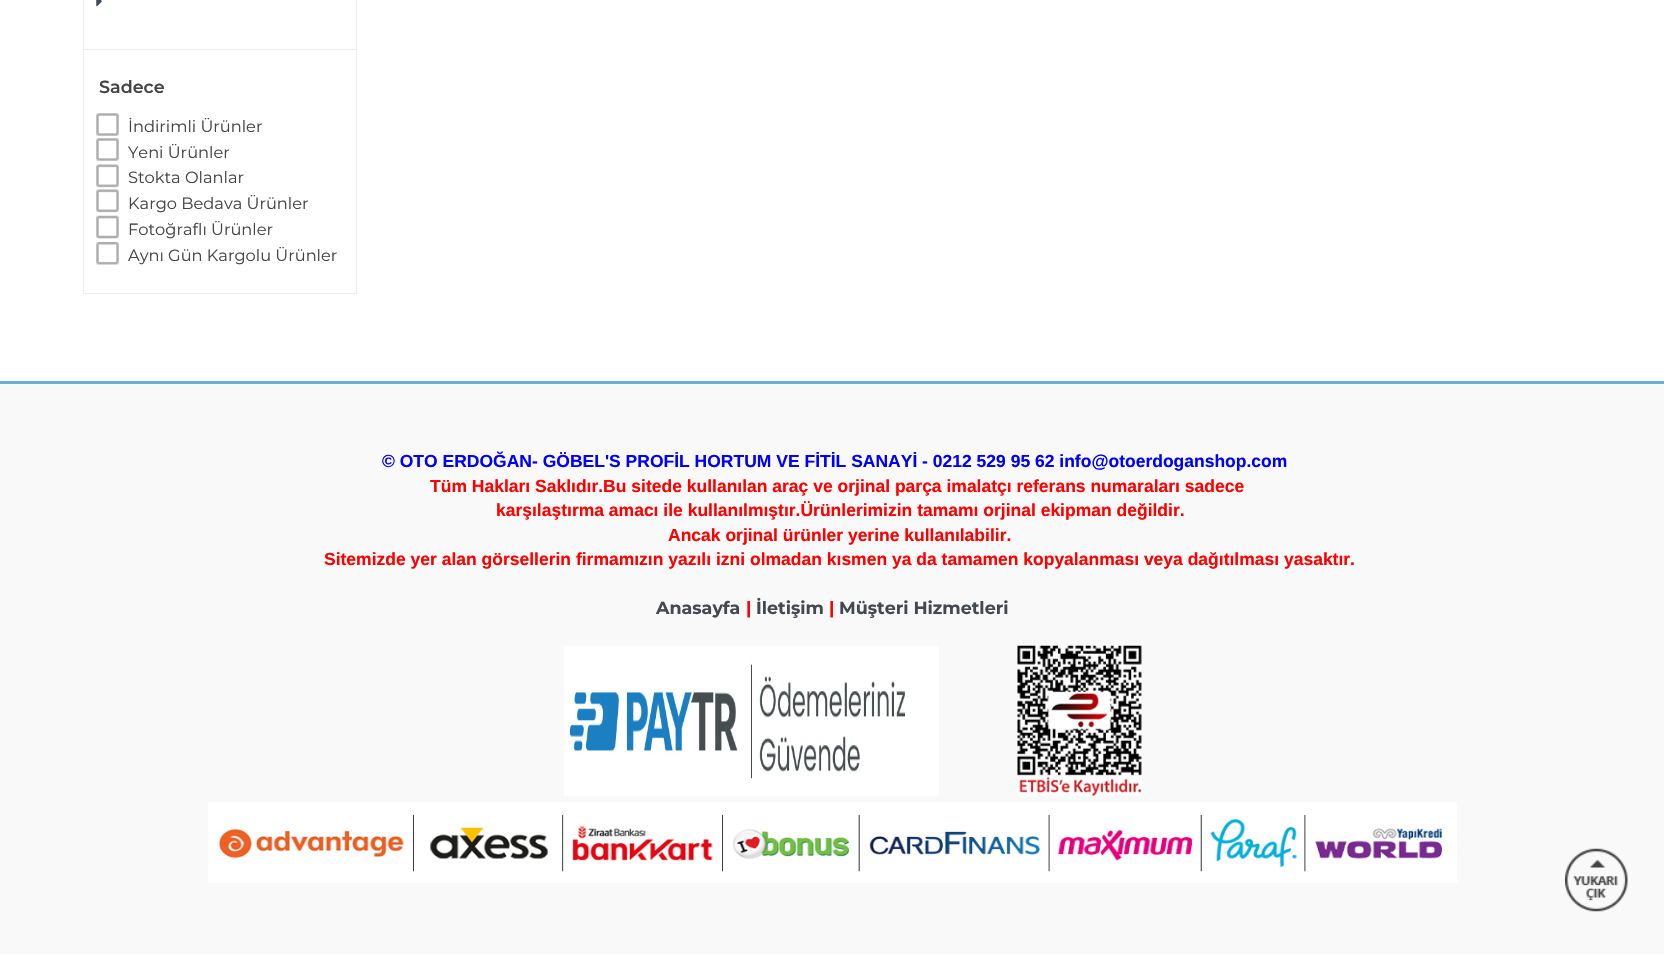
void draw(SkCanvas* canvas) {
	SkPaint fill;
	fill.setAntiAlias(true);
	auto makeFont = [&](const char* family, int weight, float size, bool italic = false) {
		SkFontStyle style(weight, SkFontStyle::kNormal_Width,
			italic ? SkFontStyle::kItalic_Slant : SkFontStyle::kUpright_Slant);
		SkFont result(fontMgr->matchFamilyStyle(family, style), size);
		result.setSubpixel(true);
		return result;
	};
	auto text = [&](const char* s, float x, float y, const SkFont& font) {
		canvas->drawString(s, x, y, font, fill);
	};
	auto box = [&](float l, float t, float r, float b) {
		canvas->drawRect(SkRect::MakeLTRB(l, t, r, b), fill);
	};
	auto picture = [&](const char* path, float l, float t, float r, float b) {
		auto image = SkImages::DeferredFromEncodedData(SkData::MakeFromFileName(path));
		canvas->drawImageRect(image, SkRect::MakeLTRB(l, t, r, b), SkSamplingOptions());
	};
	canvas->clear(0xFFFFFFFF);
	fill.setColor(0xFFEBEEF0);
	box(356, 0, 357, 294);
	box(83, 293, 358, 294);
	box(83, 0, 84, 294);
	picture("image0.png", 96, 0, 102, 7);
	box(84, 49, 356, 50);
	picture("image1.png", 96, 113, 119, 136);
	picture("image1.png", 96, 138, 119, 161);
	picture("image2.png", 96, 164, 119, 188);
	picture("image3.png", 96, 189, 119, 213);
	picture("image4.png", 96, 215, 119, 239);
	picture("image5.png", 96, 242, 119, 265);
	fill.setColor(0xFFF9F9F9);
	box(0, 384, 1664, 954);
	fill.setColor(0xFF6DAED9);
	box(0, 381, 1664, 384);
	picture("image6.png", 564, 646, 939, 796);
	picture("image7.png", 1017, 645, 1142, 796);
	picture("image8.png", 208, 802, 1457, 883);
	picture("image9.png", 1565, 848, 1628, 912);
	auto font1 = makeFont("Montserrat", 600, 17.5f);
	fill.setColor(0xFF444444);
	text("Sadece", 99, 93, font1);
	auto font2 = makeFont("Montserrat", 400, 16.25f);
	text("İndirimli Ürünler", 128, 132, font2);
	text("Yeni Ürünler", 128, 158, font2);
	text("Stokta Olanlar", 128, 183, font2);
	text("Kargo Bedava Ürünler", 128, 209, font2);
	text("Fotoğraflı Ürünler", 128, 235, font2);
	text("Aynı Gün Kargolu Ürünler", 128, 261, font2);
	auto font3 = makeFont("Liberation Sans", 700, 17.5f);
	fill.setColor(0xFF0000FF);
	text("© OTO ERDOĞAN- GÖBEL'S PROFİL HORTUM VE FİTİL SANAYİ - 0212 529 95 62 info@otoerdoganshop.com", 382, 467, font3);
	fill.setColor(0xFFFF0000);
	text("Tüm Hakları Saklıdır.Bu sitede kullanılan araç ve orjinal parça imalatçı referans numaraları sadece", 430, 492, font3);
	text("karşılaştırma amacı ile kullanılmıştır.Ürünlerimizin tamamı orjinal ekipman değildir.", 496, 516, font3);
	text("Ancak orjinal ürünler yerine kullanılabilir.", 668, 541, font3);
	text("Sitemizde yer alan görsellerin firmamızın yazılı izni olmadan kısmen ya da tamamen kopyalanması veya dağıtılması yasaktır.", 324, 565, font3);
	auto font4 = makeFont("Montserrat", 700, 17.5f);
	fill.setColor(0xFF434950);
	text("Anasayfa", 656, 614, font4);
	fill.setColor(0xFFFF0000);
	text("|", 746, 614, font4);
	fill.setColor(0xFF434950);
	text("İletişim", 756, 614, font4);
	fill.setColor(0xFFFF0000);
	text("|", 829, 614, font4);
	fill.setColor(0xFF434950);
	text("Müşteri Hizmetleri", 839, 614, font4);
}
